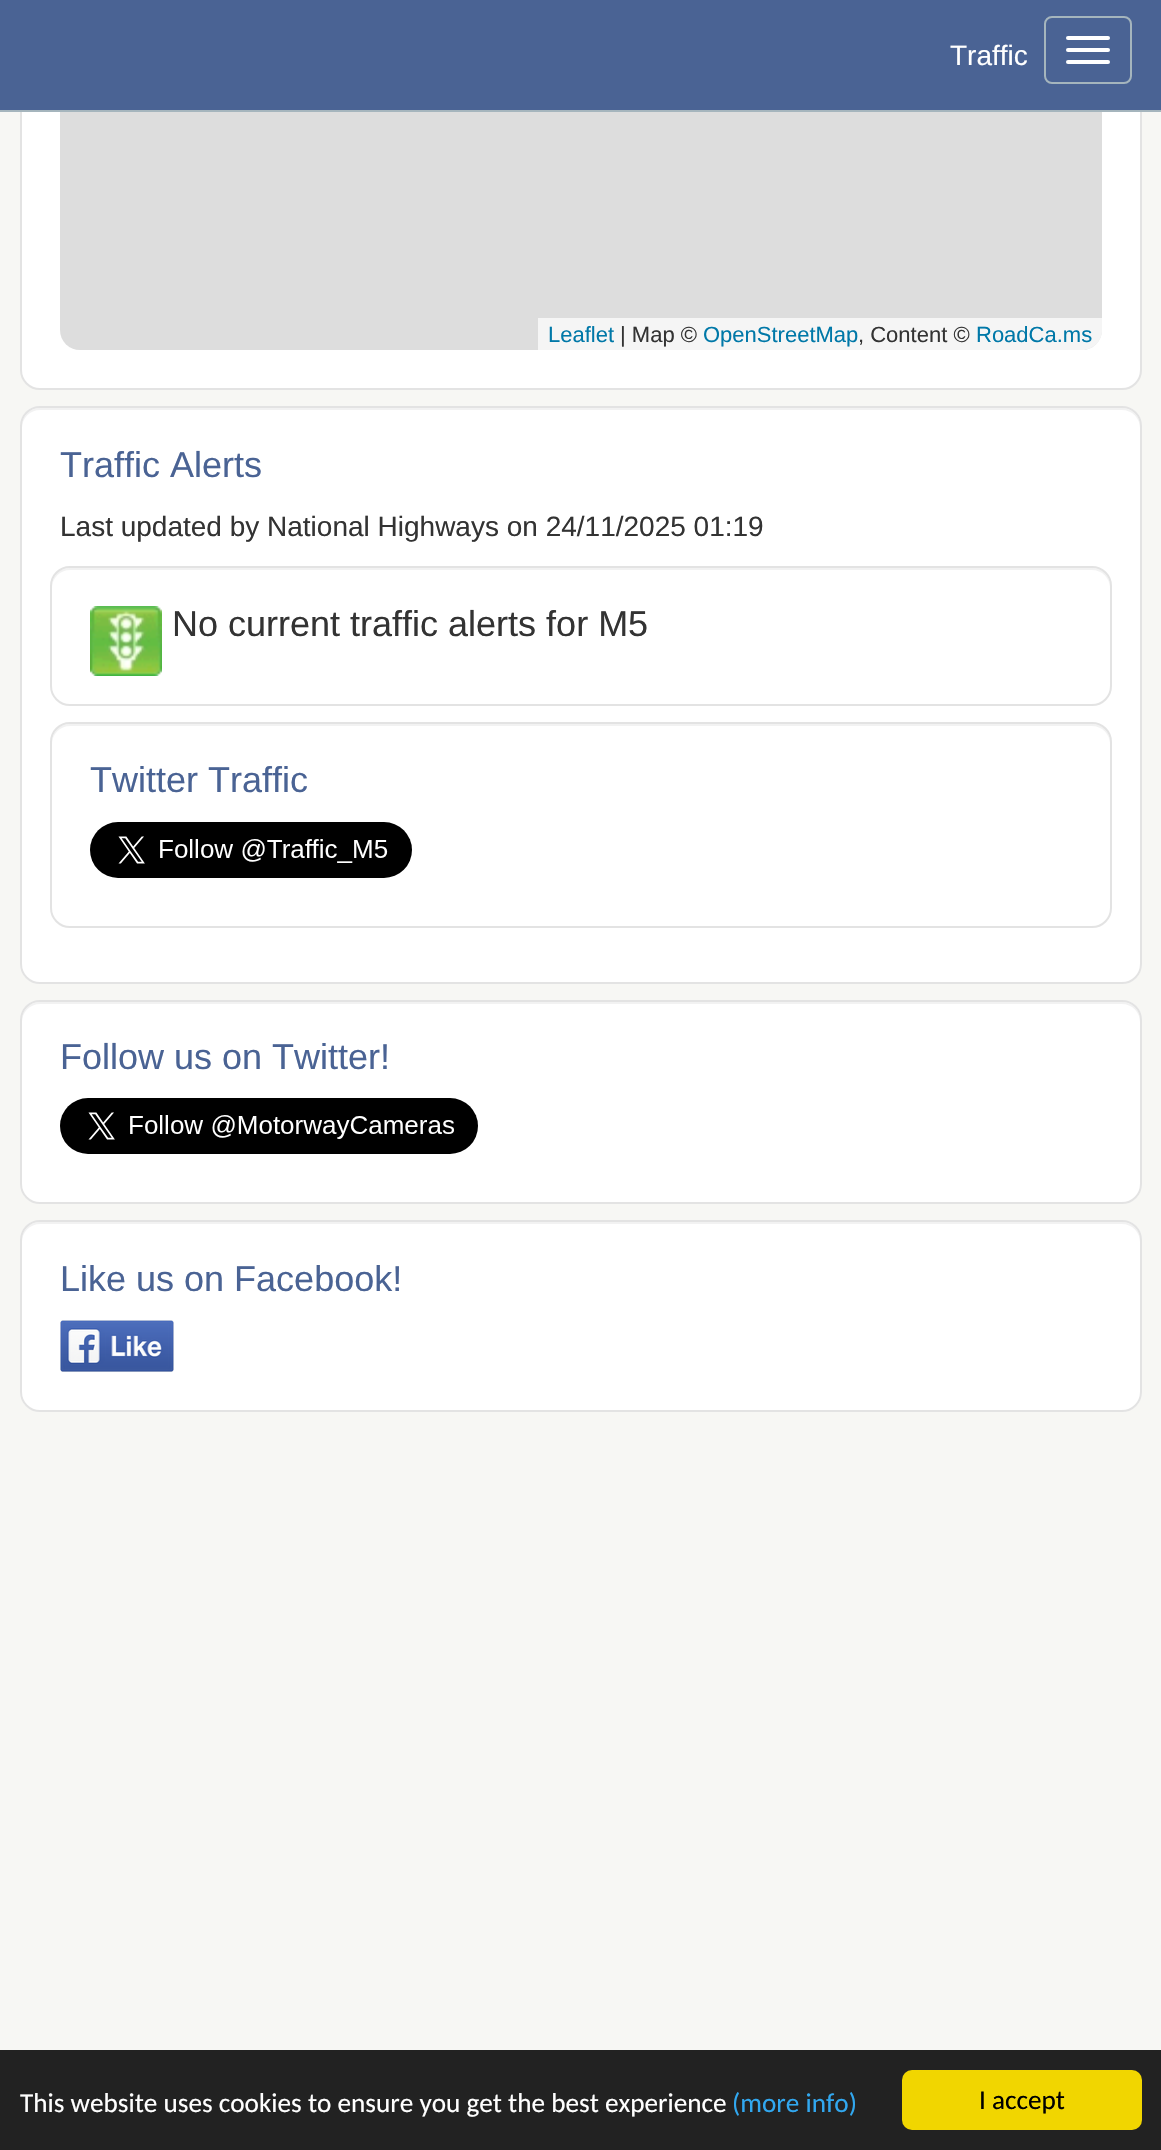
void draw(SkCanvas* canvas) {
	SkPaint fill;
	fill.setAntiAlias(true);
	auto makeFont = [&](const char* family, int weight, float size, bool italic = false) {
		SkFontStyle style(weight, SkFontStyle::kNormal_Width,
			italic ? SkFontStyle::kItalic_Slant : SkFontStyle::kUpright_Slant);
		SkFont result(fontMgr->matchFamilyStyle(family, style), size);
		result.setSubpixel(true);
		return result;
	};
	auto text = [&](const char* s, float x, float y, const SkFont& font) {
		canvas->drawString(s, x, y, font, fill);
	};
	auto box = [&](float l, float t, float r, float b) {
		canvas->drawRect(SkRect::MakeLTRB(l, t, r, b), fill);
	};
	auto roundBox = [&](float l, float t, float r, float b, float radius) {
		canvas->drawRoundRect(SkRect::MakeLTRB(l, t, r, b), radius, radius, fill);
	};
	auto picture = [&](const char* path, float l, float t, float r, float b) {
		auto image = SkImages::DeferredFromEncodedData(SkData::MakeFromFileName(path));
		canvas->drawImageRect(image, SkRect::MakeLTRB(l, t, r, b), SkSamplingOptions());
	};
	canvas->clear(0xFFF7F7F4);
	fill.setColor(0xFFFFFFFF);
	canvas->drawRoundRect(SkRect::MakeLTRB(21, -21, 1141, 389), 19, 19, fill);
	fill.setStyle(SkPaint::kStroke_Style);
	fill.setStrokeWidth(2);
	fill.setColor(0xFFE3E3E3);
	canvas->drawRoundRect(SkRect::MakeLTRB(21, -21, 1141, 389), 19, 19, fill);
	fill.setStyle(SkPaint::kFill_Style);
	fill.setColor(0xFFDDDDDD);
	roundBox(60, -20, 1102, 350, 20);
	fill.setColor(0xFF4A6394);
	box(0, 0, 1161, 110);
	fill.setColor(0xFFA5B5BD);
	box(0, 110, 1161, 112);
	fill.setStyle(SkPaint::kStroke_Style);
	canvas->drawRoundRect(SkRect::MakeLTRB(1045, 17, 1131, 83), 7, 7, fill);
	fill.setStyle(SkPaint::kFill_Style);
	fill.setColor(0xFFFFFFFF);
	roundBox(1066, 36, 1110, 40, 2);
	roundBox(1066, 48, 1110, 52, 2);
	roundBox(1066, 60, 1110, 64, 2);
	fill.setColor(0xB3FFFFFF);
	canvas->drawPath(SkPathBuilder().moveTo(538, 318).lineTo(1102, 318).lineTo(1102, 330).cubicTo(1102, 341, 1093, 350, 1082, 350).lineTo(538, 350).close().detach(), fill);
	fill.setColor(0xFFFFFFFF);
	roundBox(20, 406, 1142, 984, 20);
	fill.setColor(0xFFF2F2F2);
	canvas->drawPath(SkPathBuilder().moveTo(40, 410).lineTo(1122, 410).cubicTo(1132, 410, 1140, 418, 1140, 428).lineTo(1140, 426).cubicTo(1140, 416, 1132, 408, 1122, 408).lineTo(40, 408).cubicTo(30, 408, 22, 416, 22, 426).lineTo(22, 428).cubicTo(22, 418, 30, 410, 40, 410).close().detach(), fill);
	fill.setStyle(SkPaint::kStroke_Style);
	fill.setColor(0xFFE3E3E3);
	canvas->drawRoundRect(SkRect::MakeLTRB(21, 407, 1141, 983), 19, 19, fill);
	fill.setStyle(SkPaint::kFill_Style);
	fill.setColor(0xFFF2F2F2);
	canvas->drawPath(SkPathBuilder().moveTo(70, 570).lineTo(1092, 570).cubicTo(1102, 570, 1110, 578, 1110, 588).cubicTo(1110, 577, 1104, 568, 1092, 568).lineTo(70, 568).cubicTo(58, 568, 52, 577, 52, 588).cubicTo(52, 578, 60, 570, 70, 570).close().detach(), fill);
	fill.setStyle(SkPaint::kStroke_Style);
	fill.setColor(0xFFE3E3E3);
	canvas->drawRoundRect(SkRect::MakeLTRB(51, 567, 1111, 705), 19, 19, fill);
	picture("image0.png", 90, 606, 162, 676);
	fill.setStyle(SkPaint::kFill_Style);
	fill.setColor(0xFFF2F2F2);
	canvas->drawPath(SkPathBuilder().moveTo(70, 726).lineTo(1092, 726).cubicTo(1102, 726, 1110, 734, 1110, 744).cubicTo(1110, 733, 1104, 724, 1092, 724).lineTo(70, 724).cubicTo(58, 724, 52, 733, 52, 744).cubicTo(52, 734, 60, 726, 70, 726).close().detach(), fill);
	fill.setStyle(SkPaint::kStroke_Style);
	fill.setColor(0xFFE3E3E3);
	canvas->drawRoundRect(SkRect::MakeLTRB(51, 723, 1111, 927), 19, 19, fill);
	picture("image1.png", 90, 822, 412, 878);
	fill.setStyle(SkPaint::kFill_Style);
	fill.setColor(0xFFFFFFFF);
	roundBox(20, 1000, 1142, 1204, 20);
	fill.setColor(0xFFF2F2F2);
	canvas->drawPath(SkPathBuilder().moveTo(40, 1004).lineTo(1122, 1004).cubicTo(1132, 1004, 1140, 1012, 1140, 1022).lineTo(1140, 1020).cubicTo(1140, 1010, 1132, 1002, 1122, 1002).lineTo(40, 1002).cubicTo(30, 1002, 22, 1010, 22, 1020).lineTo(22, 1022).cubicTo(22, 1012, 30, 1004, 40, 1004).close().detach(), fill);
	fill.setStyle(SkPaint::kStroke_Style);
	fill.setColor(0xFFE3E3E3);
	canvas->drawRoundRect(SkRect::MakeLTRB(21, 1001, 1141, 1203), 19, 19, fill);
	picture("image2.png", 60, 1098, 478, 1154);
	fill.setStyle(SkPaint::kFill_Style);
	fill.setColor(0xFFFFFFFF);
	roundBox(20, 1220, 1142, 1412, 20);
	fill.setColor(0xFFF2F2F2);
	canvas->drawPath(SkPathBuilder().moveTo(40, 1224).lineTo(1122, 1224).cubicTo(1132, 1224, 1140, 1232, 1140, 1242).lineTo(1140, 1240).cubicTo(1140, 1230, 1132, 1222, 1122, 1222).lineTo(40, 1222).cubicTo(30, 1222, 22, 1230, 22, 1240).lineTo(22, 1242).cubicTo(22, 1232, 30, 1224, 40, 1224).close().detach(), fill);
	fill.setStyle(SkPaint::kStroke_Style);
	fill.setColor(0xFFE3E3E3);
	canvas->drawRoundRect(SkRect::MakeLTRB(21, 1221, 1141, 1411), 19, 19, fill);
	picture("image3.png", 60, 1320, 174, 1372);
	fill.setStyle(SkPaint::kFill_Style);
	fill.setColor(0xFF222222);
	box(0, 2050, 1161, 2150);
	fill.setColor(0xFFF1D600);
	roundBox(902, 2070, 1142, 2130, 10);
	auto font1 = makeFont("Liberation Sans", 400, 28);
	fill.setColor(0xFFFFFFFF);
	text("Traffic", 950, 65, font1);
	auto font2 = makeFont("Liberation Sans", 400, 22);
	fill.setColor(0xFF0078A8);
	text("Leaflet", 548, 342, font2);
	fill.setColor(0xFF333333);
	text("| Map ©", 620, 342, font2);
	fill.setColor(0xFF0078A8);
	text("OpenStreetMap", 703, 342, font2);
	fill.setColor(0xFF333333);
	text(", Content ©", 858, 342, font2);
	fill.setColor(0xFF0078A8);
	text("RoadCa.ms", 976, 342, font2);
	auto font3 = makeFont("Liberation Sans", 400, 36);
	fill.setColor(0xFF4A6394);
	text("Traffic Alerts", 60, 477, font3);
	fill.setColor(0xFF333333);
	text("Last updated by National Highways on 24/11/2025 01:19", 60, 536, font1);
	text("No current traffic alerts for M5", 172, 636, font3);
	fill.setColor(0xFF4A6394);
	text("Twitter Traffic", 90, 792, font3);
	text("Follow us on Twitter!", 60, 1069, font3);
	text("Like us on Facebook!", 60, 1291, font3);
	auto font4 = makeFont("Carlito", 400, 27.2f);
	fill.setColor(0xFFFFFFFF);
	text("This website uses cookies to ensure you get the best experience", 20, 2112, font4);
	fill.setColor(0xFF31A8F0);
	text("(more info)", 732, 2112, font4);
	fill.setColor(0xFF000000);
	text("I accept", 979, 2109, font4);
}
